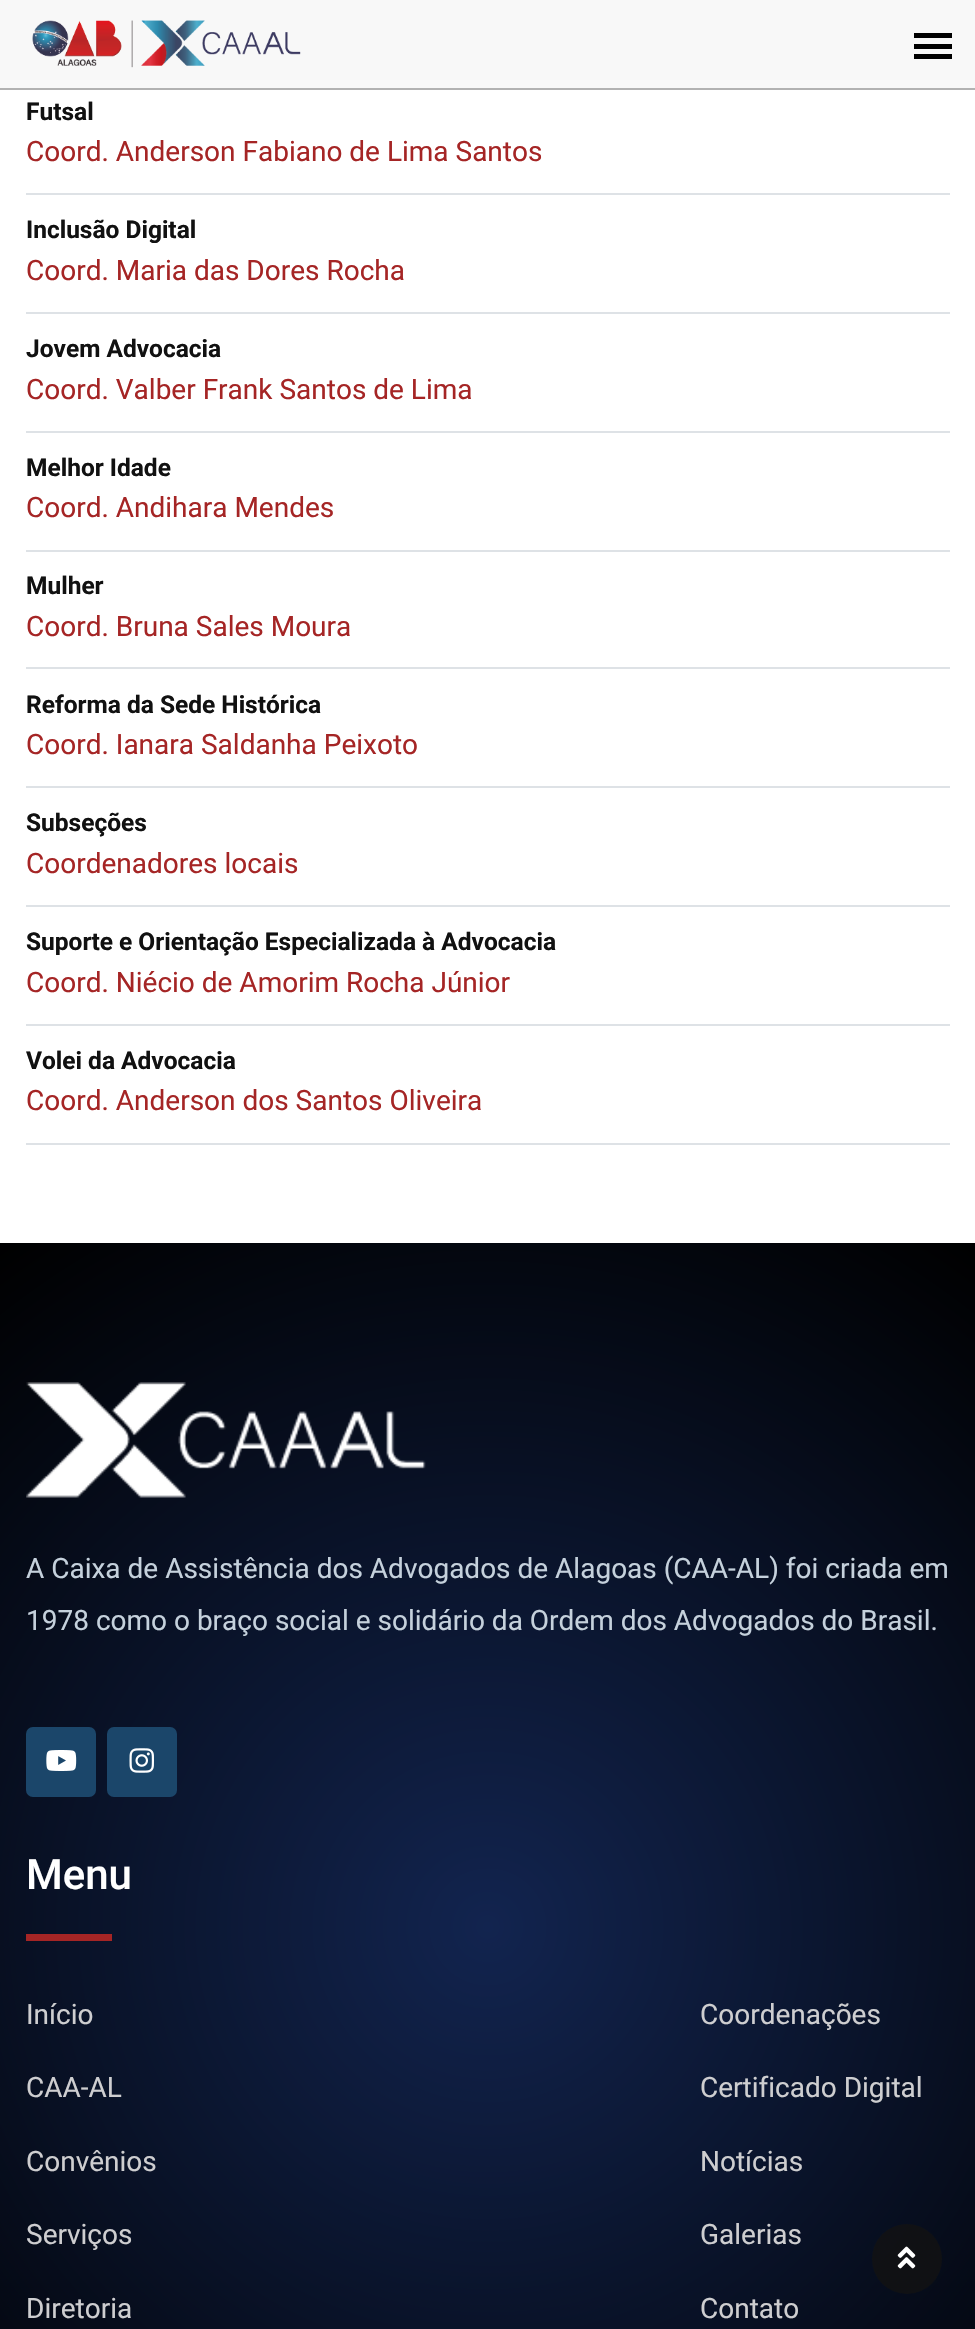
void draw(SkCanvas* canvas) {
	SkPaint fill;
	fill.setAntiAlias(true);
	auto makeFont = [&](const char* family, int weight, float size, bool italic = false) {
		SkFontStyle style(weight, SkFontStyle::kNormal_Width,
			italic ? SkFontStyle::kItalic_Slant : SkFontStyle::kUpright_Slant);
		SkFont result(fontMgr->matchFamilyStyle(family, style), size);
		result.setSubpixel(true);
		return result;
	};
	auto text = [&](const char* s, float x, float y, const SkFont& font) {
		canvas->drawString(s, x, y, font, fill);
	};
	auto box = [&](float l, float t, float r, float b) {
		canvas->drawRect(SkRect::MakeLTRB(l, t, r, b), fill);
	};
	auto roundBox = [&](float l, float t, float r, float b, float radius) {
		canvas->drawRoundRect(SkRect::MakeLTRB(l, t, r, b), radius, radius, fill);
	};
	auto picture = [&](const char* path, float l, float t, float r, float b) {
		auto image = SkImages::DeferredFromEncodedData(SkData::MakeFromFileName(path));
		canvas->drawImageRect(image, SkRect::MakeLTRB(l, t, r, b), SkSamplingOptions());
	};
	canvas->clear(0xFFFFFFFF);
	fill.setColor(0xFFB2B2B2);
	box(0, 88, 975, 90);
	fill.setColor(0xFFF8F8F8);
	box(0, 0, 975, 88);
	picture("image0.png", 32, 20, 301, 68);
	fill.setColor(0xFF000000);
	box(914, 33, 952, 38);
	box(914, 44, 952, 49);
	box(914, 54, 952, 59);
	fill.setColor(0xFFDEE2E6);
	box(26, 193, 950, 195);
	box(26, 312, 950, 314);
	box(26, 431, 950, 433);
	box(26, 550, 950, 552);
	box(26, 667, 950, 669);
	box(26, 786, 950, 788);
	box(26, 905, 950, 907);
	box(26, 1024, 950, 1026);
	box(26, 1143, 950, 1145);
	{
		const SkColor colors[] = {0xFF12244F, 0xFF000000};
		const float stops[] = {0, 1};
		fill.setShader(SkGradientShader::MakeRadial({488, 1927}, 841, colors, stops, 2, SkTileMode::kClamp));
		fill.setAlpha(255);
	}
	box(0, 1243, 975, 2329);
	picture("image1.png", 26, 1382, 426, 1498);
	fill.setShader(nullptr);
	fill.setColor(0xFF1B466A);
	roundBox(26, 1727, 96, 1797, 7);
	picture("image2.png", 46, 1750, 77, 1771);
	roundBox(107, 1727, 177, 1797, 7);
	picture("image3.png", 129, 1748, 154, 1773);
	fill.setColor(0xFFA52525);
	box(26, 1934, 112, 1941);
	fill.setColor(0xCC111111);
	canvas->drawCircle(907, 2259, 35, fill);
	picture("image4.png", 897, 2246, 916, 2269);
	auto font1 = makeFont("Roboto", 700, 24.5f);
	fill.setColor(0xFF111111);
	text("Futsal", 26, 120, font1);
	auto font2 = makeFont("Roboto", 400, 28);
	fill.setColor(0xFFA52525);
	text("Coord. Anderson Fabiano de Lima Santos", 26, 161, font2);
	fill.setColor(0xFF111111);
	text("Inclusão Digital", 26, 238, font1);
	fill.setColor(0xFFA52525);
	text("Coord. Maria das Dores Rocha", 26, 280, font2);
	fill.setColor(0xFF111111);
	text("Jovem Advocacia", 26, 357, font1);
	fill.setColor(0xFFA52525);
	text("Coord. Valber Frank Santos de Lima", 26, 399, font2);
	fill.setColor(0xFF111111);
	text("Melhor Idade", 26, 476, font1);
	fill.setColor(0xFFA52525);
	text("Coord. Andihara Mendes", 26, 517, font2);
	fill.setColor(0xFF111111);
	text("Mulher", 26, 594, font1);
	fill.setColor(0xFFA52525);
	text("Coord. Bruna Sales Moura", 26, 636, font2);
	fill.setColor(0xFF111111);
	text("Reforma da Sede Histórica", 26, 713, font1);
	fill.setColor(0xFFA52525);
	text("Coord. Ianara Saldanha Peixoto", 26, 754, font2);
	fill.setColor(0xFF111111);
	text("Subseções", 26, 831, font1);
	fill.setColor(0xFFA52525);
	text("Coordenadores locais", 26, 873, font2);
	fill.setColor(0xFF111111);
	text("Suporte e Orientação Especializada à Advocacia", 26, 950, font1);
	fill.setColor(0xFFA52525);
	text("Coord. Niécio de Amorim Rocha Júnior", 26, 992, font2);
	fill.setColor(0xFF111111);
	text("Volei da Advocacia", 26, 1069, font1);
	fill.setColor(0xFFA52525);
	text("Coord. Anderson dos Santos Oliveira", 26, 1110, font2);
	fill.setColor(0xFFC5D1DC);
	text("A Caixa de Assistência dos Advogados de Alagoas (CAA-AL) foi criada em", 26, 1578, font2);
	text("1978 como o braço social e solidário da Ordem dos Advogados do Brasil.", 26, 1630, font2);
	auto font3 = makeFont("Roboto", 500, 42);
	fill.setColor(0xFFFFFFFF);
	text("Menu", 26, 1889, font3);
	fill.setColor(0xFFCECED0);
	text("Início", 26, 2024, font2);
	text("CAA-AL", 26, 2097, font2);
	text("Convênios", 26, 2171, font2);
	text("Serviços", 26, 2244, font2);
	text("Diretoria", 26, 2318, font2);
	text("Coordenações", 700, 2024, font2);
	text("Certificado Digital", 700, 2097, font2);
	text("Notícias", 700, 2171, font2);
	text("Galerias", 700, 2244, font2);
	text("Contato", 700, 2318, font2);
}
